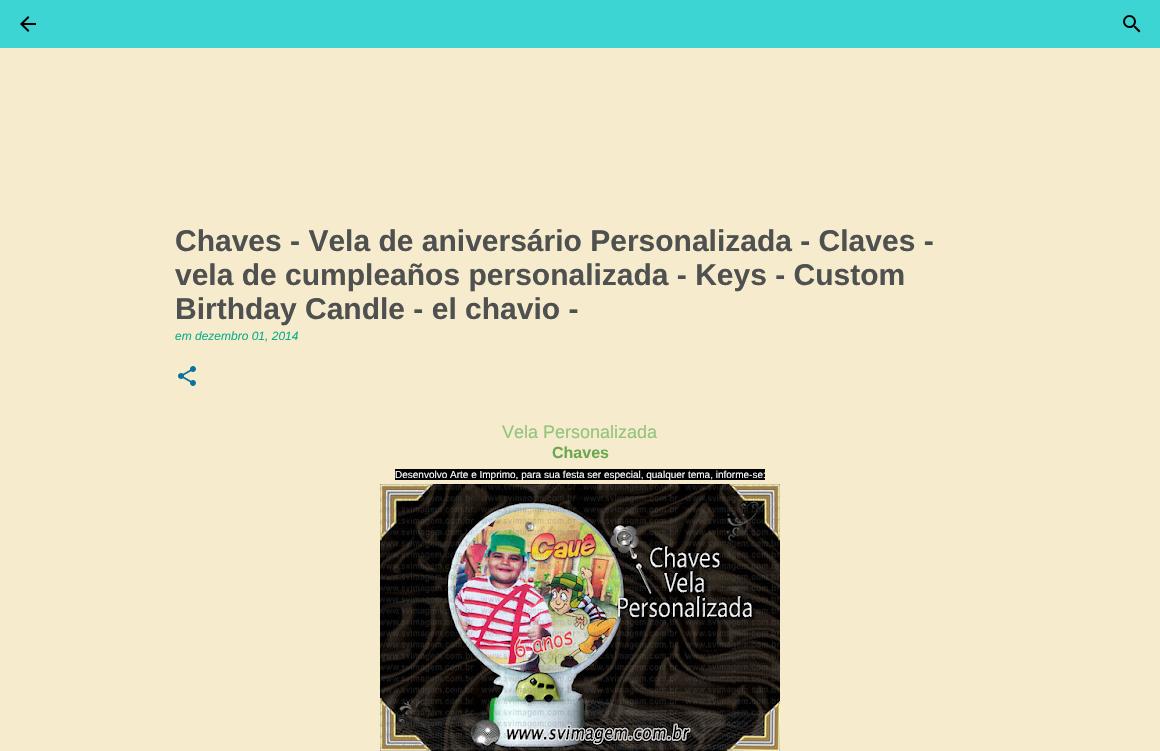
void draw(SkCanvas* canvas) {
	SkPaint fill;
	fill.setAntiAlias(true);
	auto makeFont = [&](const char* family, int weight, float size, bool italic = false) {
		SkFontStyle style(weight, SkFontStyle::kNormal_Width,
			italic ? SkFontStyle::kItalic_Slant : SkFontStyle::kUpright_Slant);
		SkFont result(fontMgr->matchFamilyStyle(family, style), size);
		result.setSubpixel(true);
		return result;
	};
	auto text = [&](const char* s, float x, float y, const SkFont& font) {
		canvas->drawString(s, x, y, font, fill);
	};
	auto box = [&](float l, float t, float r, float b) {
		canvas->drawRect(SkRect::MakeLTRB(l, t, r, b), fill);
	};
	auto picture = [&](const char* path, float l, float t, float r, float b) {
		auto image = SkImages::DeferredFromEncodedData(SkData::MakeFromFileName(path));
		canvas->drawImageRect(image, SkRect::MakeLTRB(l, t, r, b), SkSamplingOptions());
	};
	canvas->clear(0xFFF6EBCD);
	fill.setColor(0xFF3DD4D4);
	box(0, 0, 1160, 48);
	picture("image0.png", 20, 16, 36, 32);
	picture("image1.png", 1123, 15, 1141, 33);
	picture("image2.png", 178, 366, 196, 386);
	fill.setColor(0xFF000000);
	box(395, 469, 765, 480);
	picture("image3.png", 380, 484, 780, 751);
	auto font1 = makeFont("Liberation Sans", 700, 30);
	fill.setColor(0xFF4F5050);
	text("Chaves - Vela de aniversário Personalizada - Claves -", 175, 251, font1);
	text("vela de cumpleaños personalizada - Keys - Custom", 175, 285, font1);
	text("Birthday Candle - el chavio -", 175, 319, font1);
	auto font2 = makeFont("Liberation Sans", 400, 12, true);
	fill.setColor(0xFF0BAE8B);
	text("em dezembro 01, 2014", 175, 340, font2);
	auto font3 = makeFont("Liberation Sans", 400, 18);
	fill.setColor(0xFF93C47D);
	text("Vela Personalizada", 502, 438, font3);
	auto font4 = makeFont("Liberation Sans", 700, 16);
	fill.setColor(0xFF6AA84F);
	text("Chaves", 552, 458, font4);
	auto font5 = makeFont("Liberation Sans", 400, 10);
	fill.setColor(0xFFFFFFFF);
	text("Desenvolvo Arte e Imprimo, para sua festa ser especial, qualquer tema, informe-se:", 395, 478, font5);
}
